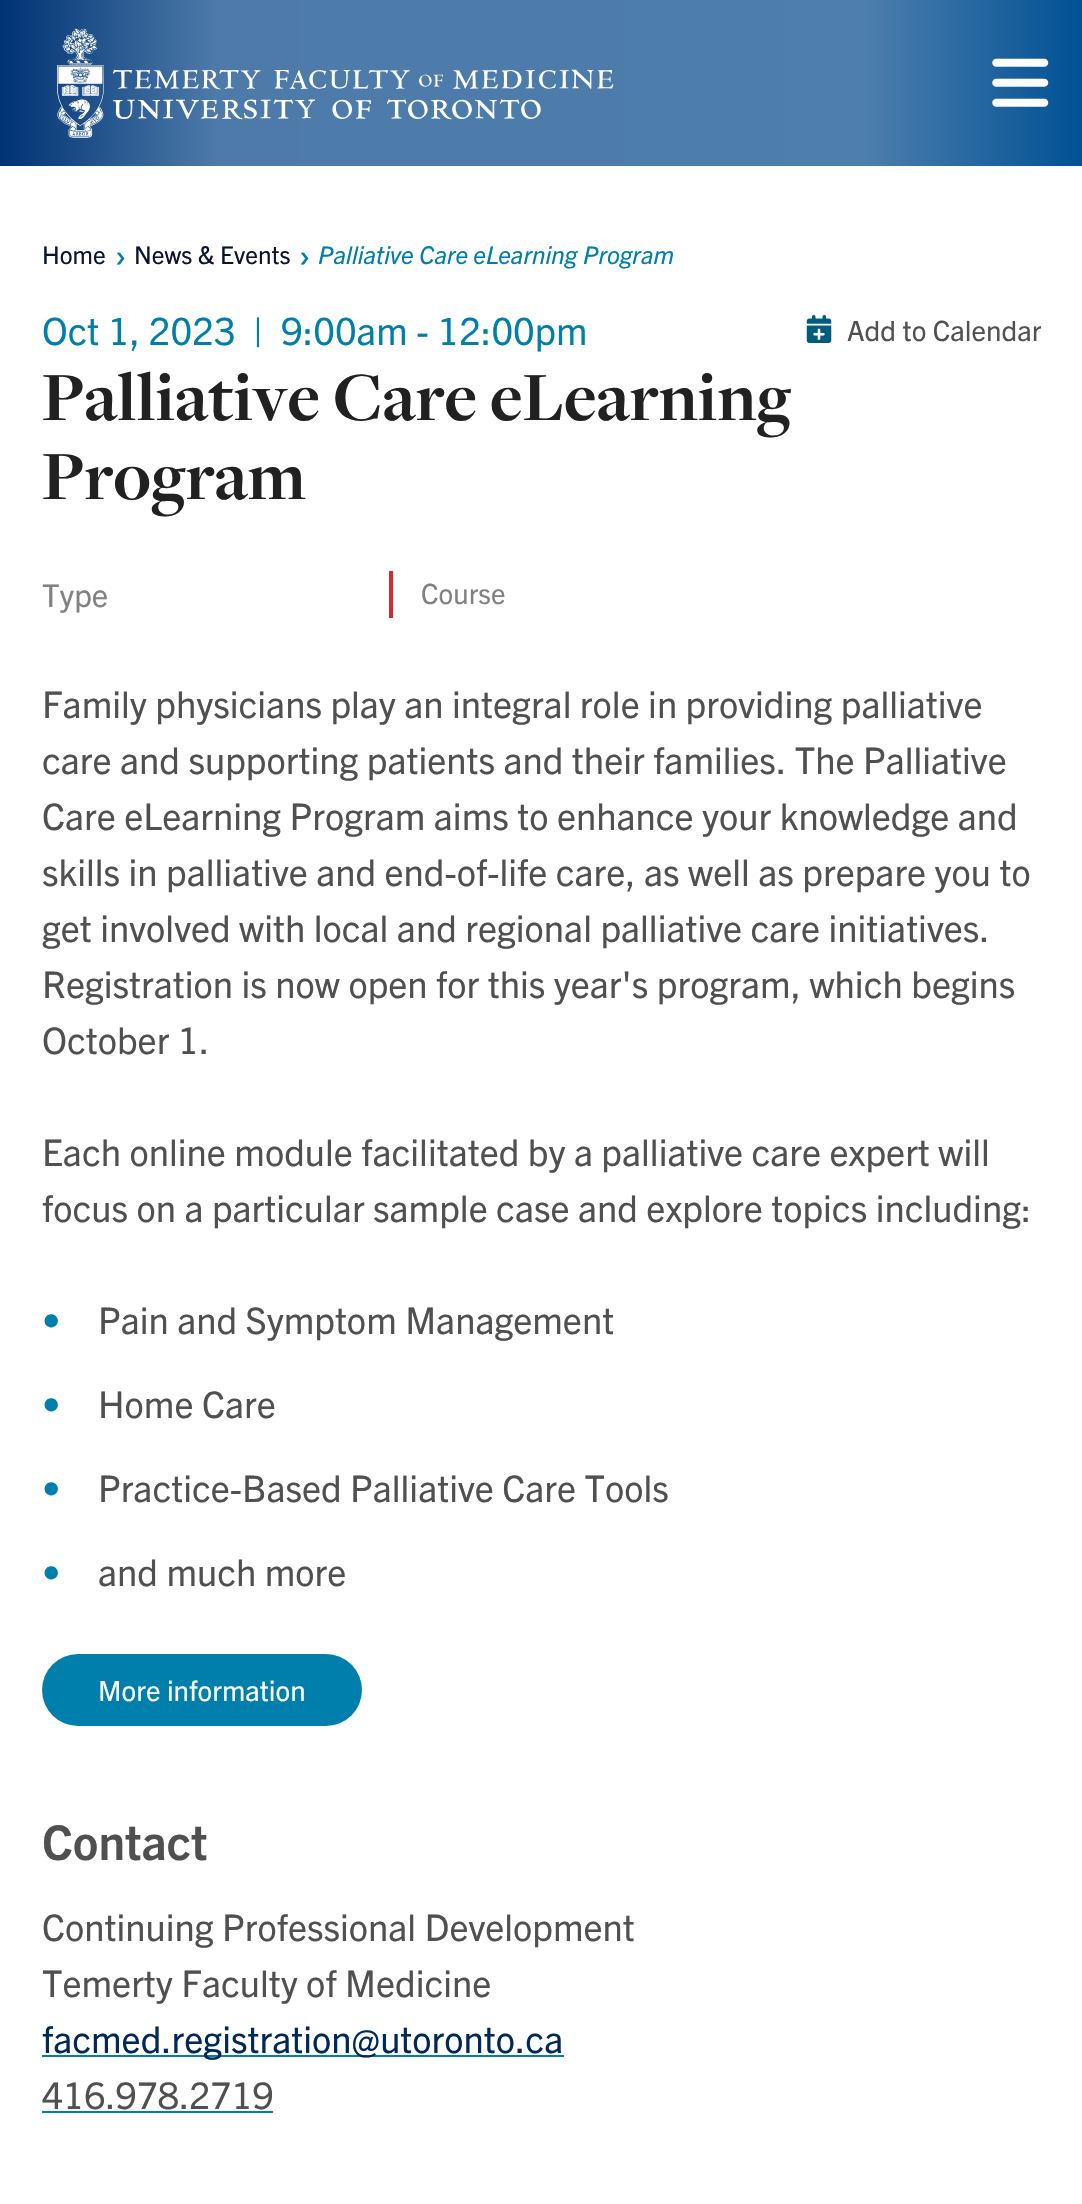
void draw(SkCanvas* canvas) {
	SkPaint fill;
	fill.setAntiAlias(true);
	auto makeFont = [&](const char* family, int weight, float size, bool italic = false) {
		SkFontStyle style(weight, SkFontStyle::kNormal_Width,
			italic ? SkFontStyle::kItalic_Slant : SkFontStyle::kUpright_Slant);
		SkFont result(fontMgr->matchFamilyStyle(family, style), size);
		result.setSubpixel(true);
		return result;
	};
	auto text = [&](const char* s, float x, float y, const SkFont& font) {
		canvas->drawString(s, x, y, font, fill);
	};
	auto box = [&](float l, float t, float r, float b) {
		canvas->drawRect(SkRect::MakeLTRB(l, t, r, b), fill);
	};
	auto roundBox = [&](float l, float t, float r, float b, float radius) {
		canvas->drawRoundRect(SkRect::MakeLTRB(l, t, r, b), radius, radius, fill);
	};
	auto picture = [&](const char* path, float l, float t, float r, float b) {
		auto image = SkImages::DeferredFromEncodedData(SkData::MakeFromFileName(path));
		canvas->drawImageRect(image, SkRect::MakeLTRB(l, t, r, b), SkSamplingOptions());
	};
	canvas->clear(0xFFFFFFFF);
	{
		const SkColor colors[] = {0xFF005194, 0xFF4D7EAD, 0xFF4D7AA9, 0xFF003374};
		const float stops[] = {0, 0.2f, 0.8f, 1};
		const SkPoint ends[] = {{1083, 83}, {0, 83}};
		fill.setShader(SkGradientShader::MakeLinear(ends, colors, stops, 4, SkTileMode::kClamp));
		fill.setAlpha(255);
	}
	box(0, 0, 1082, 166);
	picture("image0.png", 57, 28, 614, 138);
	picture("image1.png", 992, 58, 1049, 107);
	picture("image2.png", 806, 315, 832, 343);
	fill.setShader(nullptr);
	fill.setColor(0xFFD32A32);
	box(389, 571, 393, 618);
	fill.setColor(0xFF007FAD);
	roundBox(42, 1654, 362, 1726, 36);
	box(42, 2055, 564, 2057);
	box(42, 2111, 273, 2113);
	auto font1 = makeFont("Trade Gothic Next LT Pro", 400, 24.5f);
	fill.setColor(0xFF0A1331);
	text("Home", 42, 264, font1);
	auto font2 = makeFont("Trade Gothic Next LT Pro", 400, 36.75f);
	fill.setColor(0xFF007FAD);
	text("›", 114, 268, font2);
	fill.setColor(0xFF0A1331);
	text("News & Events", 134, 264, font1);
	fill.setColor(0xFF007FAD);
	text("›", 298, 268, font2);
	auto font3 = makeFont("Trade Gothic Next LT Pro", 400, 24.5f, true);
	text("Palliative Care eLearning Program", 318, 264, font3);
	auto font4 = makeFont("Trade Gothic Next LT Pro", 400, 37.75f);
	text("Oct 1, 2023", 42, 345, font4);
	text("|", 253, 345, font4);
	text("9:00am - 12:00pm", 281, 345, font4);
	auto font5 = makeFont("Trade Gothic Next LT Pro", 400, 28);
	fill.setColor(0xFF505050);
	text("Add to Calendar", 847, 341, font5);
	auto font6 = makeFont("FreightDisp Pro", 700, 71.5f);
	fill.setColor(0xFF212121);
	text("Palliative Care eLearning", 42, 420, font6);
	text("Program", 42, 499, font6);
	auto font7 = makeFont("Trade Gothic Next LT Pro", 400, 31.5f);
	fill.setColor(0xFF818181);
	text("Type", 42, 607, font7);
	text("Course", 421, 604, font5);
	fill.setColor(0xFF505050);
	text("Family physicians play an integral role in providing palliative", 42, 718, font2);
	text("care and supporting patients and their families. The Palliative", 42, 774, font2);
	text("Care eLearning Program aims to enhance your knowledge and", 42, 830, font2);
	text("skills in palliative and end-of-life care, as well as prepare you to", 42, 886, font2);
	text("get involved with local and regional palliative care initiatives.", 42, 942, font2);
	text("Registration is now open for this year's program, which begins", 42, 998, font2);
	text("October 1.", 42, 1054, font2);
	text("Each online module facilitated by a palliative care expert will", 42, 1166, font2);
	text("focus on a particular sample case and explore topics including:", 42, 1222, font2);
	fill.setColor(0xFF007FAD);
	text("•", 42, 1334, font2);
	fill.setColor(0xFF505050);
	text("Pain and Symptom Management", 98, 1334, font2);
	fill.setColor(0xFF007FAD);
	text("•", 42, 1418, font2);
	fill.setColor(0xFF505050);
	text("Home Care", 98, 1418, font2);
	fill.setColor(0xFF007FAD);
	text("•", 42, 1502, font2);
	fill.setColor(0xFF505050);
	text("Practice-Based Palliative Care Tools", 98, 1502, font2);
	fill.setColor(0xFF007FAD);
	text("•", 42, 1586, font2);
	fill.setColor(0xFF505050);
	text("and much more", 98, 1586, font2);
	fill.setColor(0xFFFFFFFF);
	text("More information", 98, 1701, font5);
	auto font8 = makeFont("Trade Gothic Next LT Pro", 700, 48);
	fill.setColor(0xFF505050);
	text("Contact", 42, 1860, font8);
	text("Continuing Professional Development", 42, 1941, font2);
	text("Temerty Faculty of Medicine", 42, 1997, font2);
	fill.setColor(0xFF00285B);
	text("facmed.registration@utoronto.ca", 42, 2053, font2);
	fill.setColor(0xFF505050);
	text("416.978.2719", 42, 2109, font2);
}
